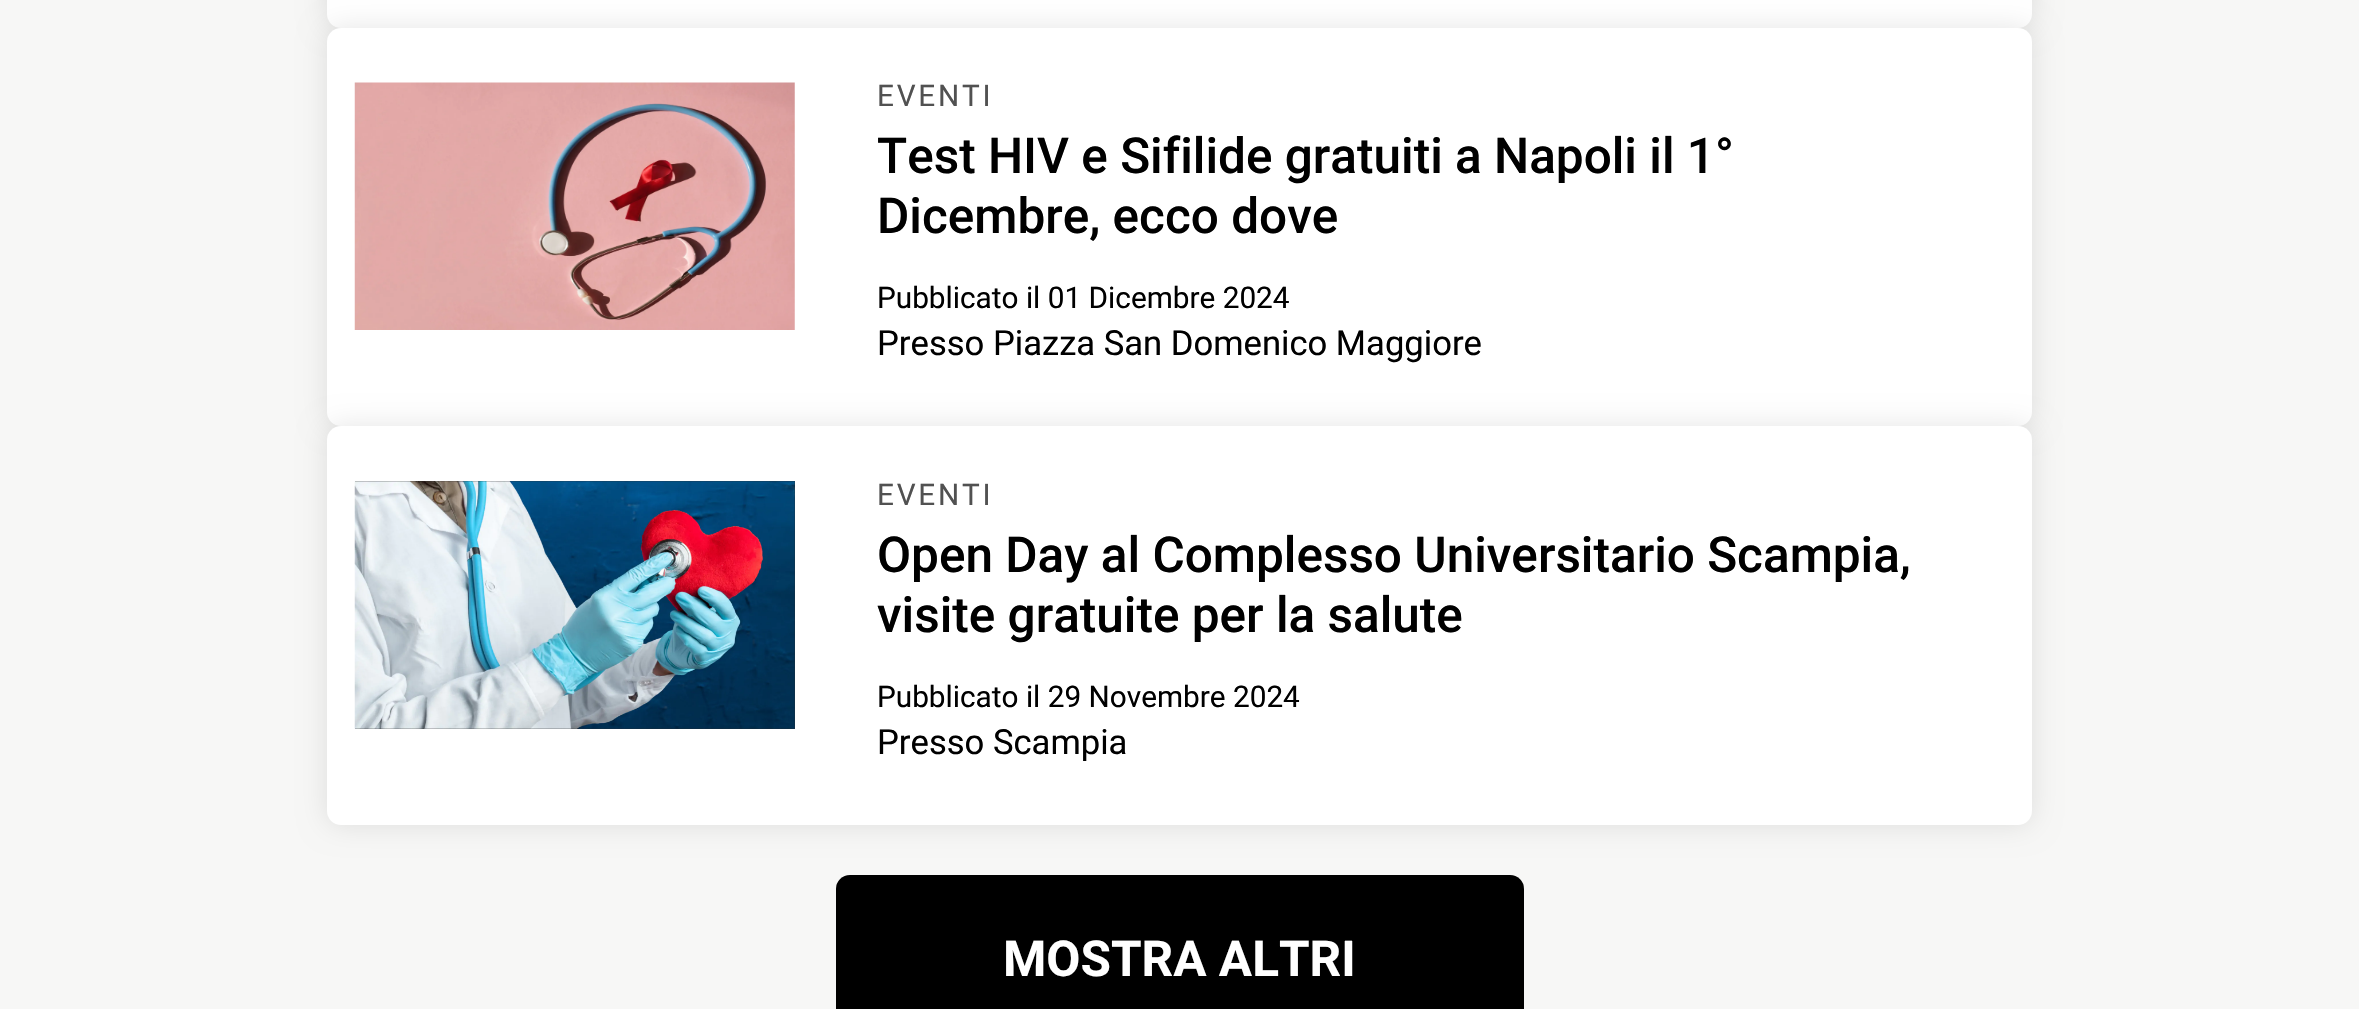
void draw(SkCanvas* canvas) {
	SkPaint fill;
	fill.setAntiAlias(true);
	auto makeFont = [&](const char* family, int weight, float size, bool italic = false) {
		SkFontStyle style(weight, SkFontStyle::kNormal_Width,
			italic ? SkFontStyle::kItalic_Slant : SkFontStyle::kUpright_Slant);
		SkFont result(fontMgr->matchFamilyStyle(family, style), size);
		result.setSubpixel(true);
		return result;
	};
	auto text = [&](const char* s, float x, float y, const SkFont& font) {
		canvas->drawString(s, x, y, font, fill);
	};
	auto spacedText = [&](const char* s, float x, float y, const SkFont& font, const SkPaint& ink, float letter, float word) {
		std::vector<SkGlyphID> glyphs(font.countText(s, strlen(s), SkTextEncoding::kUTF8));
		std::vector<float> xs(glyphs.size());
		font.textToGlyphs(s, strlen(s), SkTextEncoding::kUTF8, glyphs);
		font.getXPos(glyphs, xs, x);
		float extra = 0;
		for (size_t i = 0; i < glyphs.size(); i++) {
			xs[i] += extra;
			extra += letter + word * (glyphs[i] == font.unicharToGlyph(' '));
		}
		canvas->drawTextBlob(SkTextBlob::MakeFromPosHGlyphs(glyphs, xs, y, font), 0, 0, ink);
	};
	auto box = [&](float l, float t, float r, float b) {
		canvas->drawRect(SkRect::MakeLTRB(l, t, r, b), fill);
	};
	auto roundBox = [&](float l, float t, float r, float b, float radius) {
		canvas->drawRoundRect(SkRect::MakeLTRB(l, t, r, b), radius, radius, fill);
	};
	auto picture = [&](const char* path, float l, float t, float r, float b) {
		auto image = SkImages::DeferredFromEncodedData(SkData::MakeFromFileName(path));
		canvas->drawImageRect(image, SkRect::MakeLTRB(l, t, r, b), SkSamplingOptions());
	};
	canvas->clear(0xFFF7F7F6);
	fill.setColor(0x1A000000);
	fill.setMaskFilter(SkMaskFilter::MakeBlur(kNormal_SkBlurStyle, 14));
	canvas->drawRoundRect(SkRect::MakeLTRB(327, -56, 2032, 28), 14, 14, fill);
	fill.setMaskFilter(nullptr);
	fill.setColor(0xFFFFFFFF);
	roundBox(327, -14, 2032, 28, 14);
	fill.setColor(0x1A000000);
	fill.setMaskFilter(SkMaskFilter::MakeBlur(kNormal_SkBlurStyle, 14));
	canvas->drawRoundRect(SkRect::MakeLTRB(327, 28, 2032, 426), 14, 14, fill);
	fill.setMaskFilter(nullptr);
	fill.setColor(0xFFFFFFFF);
	roundBox(327, 28, 2032, 426, 14);
	picture("image0.png", 354, 82, 795, 330);
	fill.setColor(0x1A000000);
	fill.setMaskFilter(SkMaskFilter::MakeBlur(kNormal_SkBlurStyle, 14));
	canvas->drawRoundRect(SkRect::MakeLTRB(327, 426, 2032, 825), 14, 14, fill);
	fill.setMaskFilter(nullptr);
	fill.setColor(0xFFFFFFFF);
	roundBox(327, 426, 2032, 825, 14);
	fill.setColor(0xFF2C2C2C);
	box(355, 481, 795, 729);
	picture("image1.png", 354, 481, 795, 729);
	fill.setColor(0xFF000000);
	roundBox(836, 875, 1524, 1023, 14);
	auto font1 = makeFont("Roboto", 400, 29.75f);
	fill.setColor(0xFF515151);
	spacedText("EVENTI", 877, 106, font1, fill, 2.75f, 0);
	auto font2 = makeFont("Roboto", 500, 49.5f);
	fill.setColor(0xFF000000);
	text("Test HIV e Sifilide gratuiti a Napoli il 1°", 877, 173, font2);
	text("Dicembre, ecco dove", 877, 233, font2);
	text("Pubblicato il 01 Dicembre 2024", 877, 308, font1);
	auto font3 = makeFont("Roboto", 400, 34.6f);
	text("Presso Piazza San Domenico Maggiore", 877, 355, font3);
	fill.setColor(0xFF515151);
	spacedText("EVENTI", 877, 505, font1, fill, 2.75f, 0);
	fill.setColor(0xFF000000);
	text("Open Day al Complesso Universitario Scampia,", 877, 572, font2);
	text("visite gratuite per la salute", 877, 632, font2);
	text("Pubblicato il 29 Novembre 2024", 877, 707, font1);
	text("Presso Scampia", 877, 754, font3);
	auto font4 = makeFont("Roboto", 700, 49.5f);
	fill.setColor(0xFFFFFFFF);
	text("MOSTRA ALTRI", 1003, 976, font4);
}
